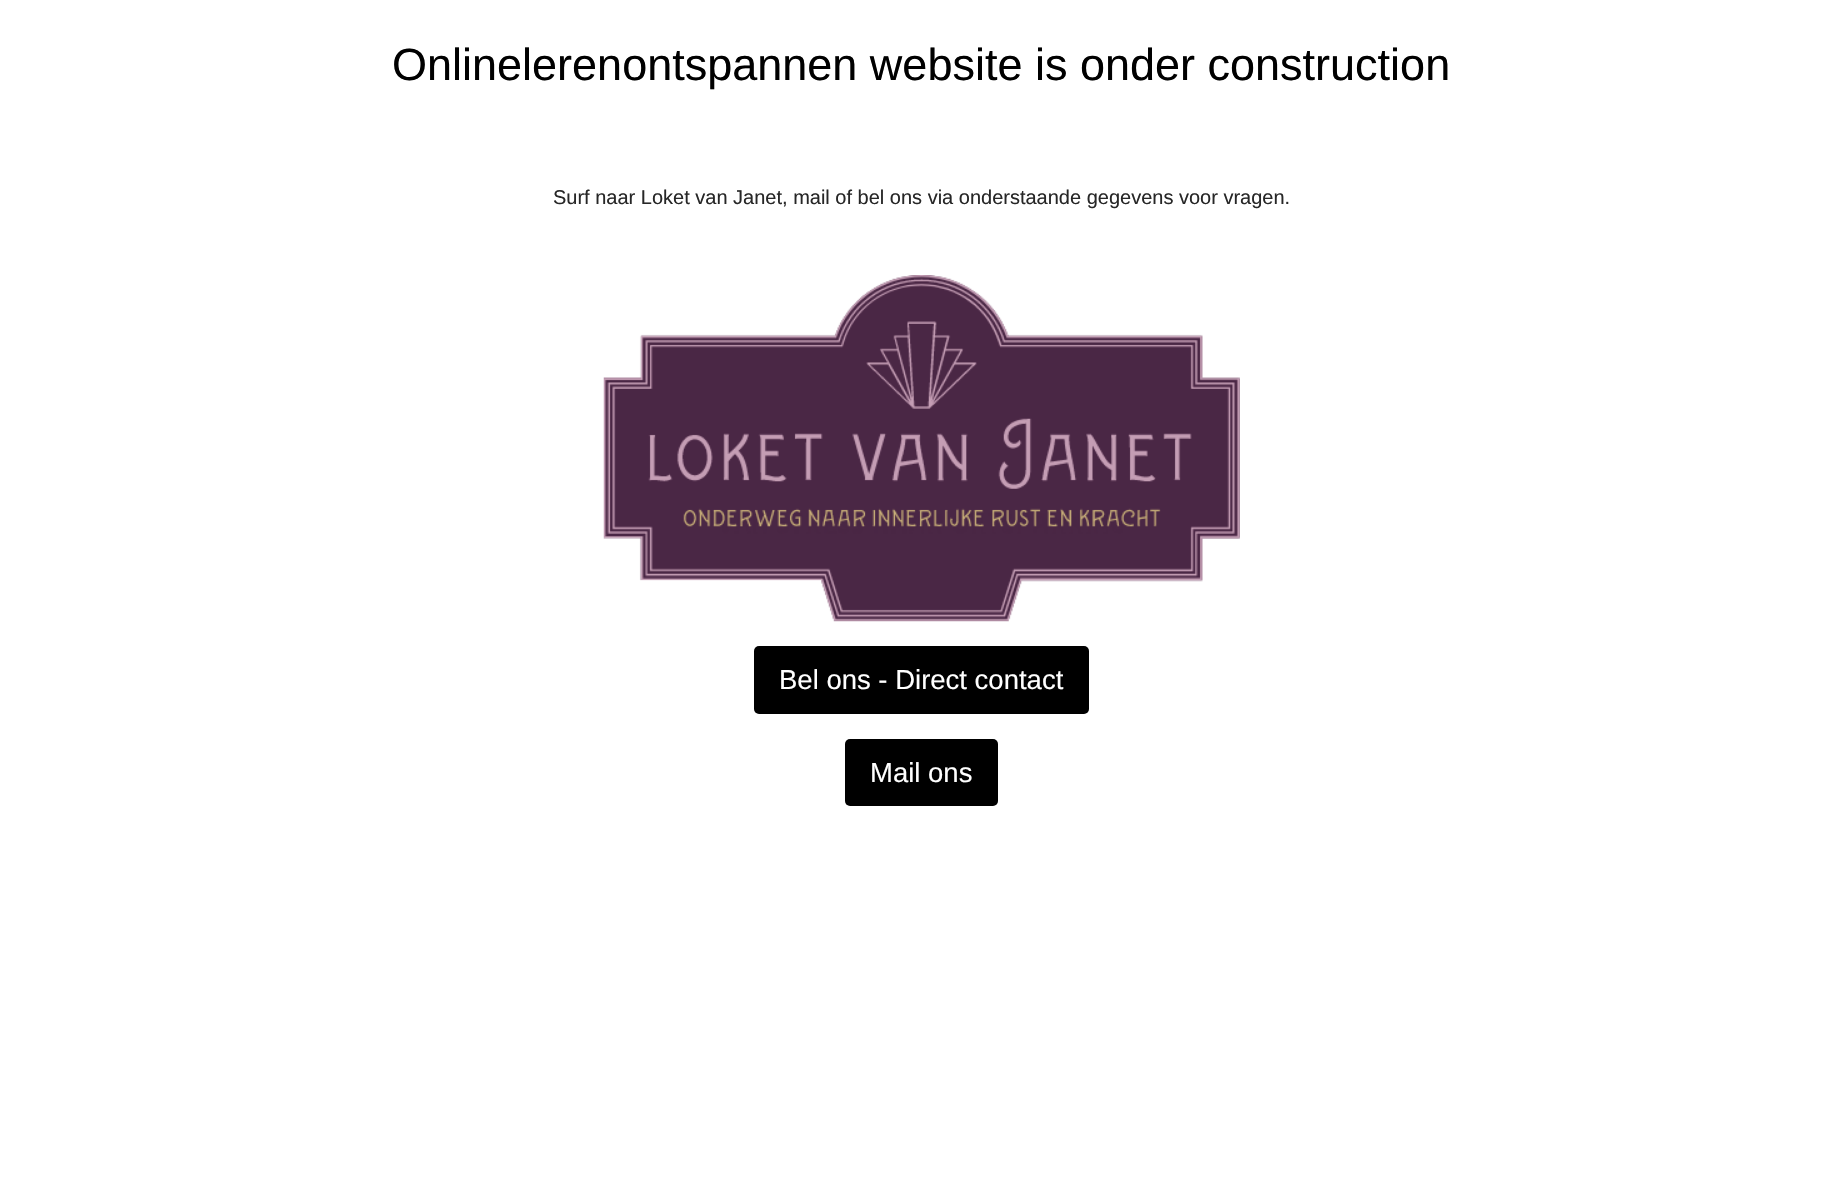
void draw(SkCanvas* canvas) {
	SkPaint fill;
	fill.setAntiAlias(true);
	auto makeFont = [&](const char* family, int weight, float size, bool italic = false) {
		SkFontStyle style(weight, SkFontStyle::kNormal_Width,
			italic ? SkFontStyle::kItalic_Slant : SkFontStyle::kUpright_Slant);
		SkFont result(fontMgr->matchFamilyStyle(family, style), size);
		result.setSubpixel(true);
		return result;
	};
	auto text = [&](const char* s, float x, float y, const SkFont& font) {
		canvas->drawString(s, x, y, font, fill);
	};
	auto roundBox = [&](float l, float t, float r, float b, float radius) {
		canvas->drawRoundRect(SkRect::MakeLTRB(l, t, r, b), radius, radius, fill);
	};
	auto picture = [&](const char* path, float l, float t, float r, float b) {
		auto image = SkImages::DeferredFromEncodedData(SkData::MakeFromFileName(path));
		canvas->drawImageRect(image, SkRect::MakeLTRB(l, t, r, b), SkSamplingOptions());
	};
	canvas->clear(0xFFFFFFFF);
	picture("image0.png", 603, 275, 1240, 622);
	fill.setColor(0xFF000000);
	roundBox(754, 646, 1089, 714, 5);
	roundBox(845, 739, 998, 806, 5);
	auto font1 = makeFont("Liberation Sans", 400, 45);
	text("Onlinelerenontspannen website is onder construction", 392, 80, font1);
	auto font2 = makeFont("Liberation Sans", 400, 20);
	fill.setColor(0xFF272727);
	text("Surf naar Loket van Janet, mail of bel ons via onderstaande gegevens voor vragen.", 553, 204, font2);
	auto font3 = makeFont("Liberation Sans", 400, 27.5f);
	fill.setColor(0xFFFFFFFF);
	text("Bel ons - Direct contact", 779, 689, font3);
	text("Mail ons", 870, 782, font3);
}
